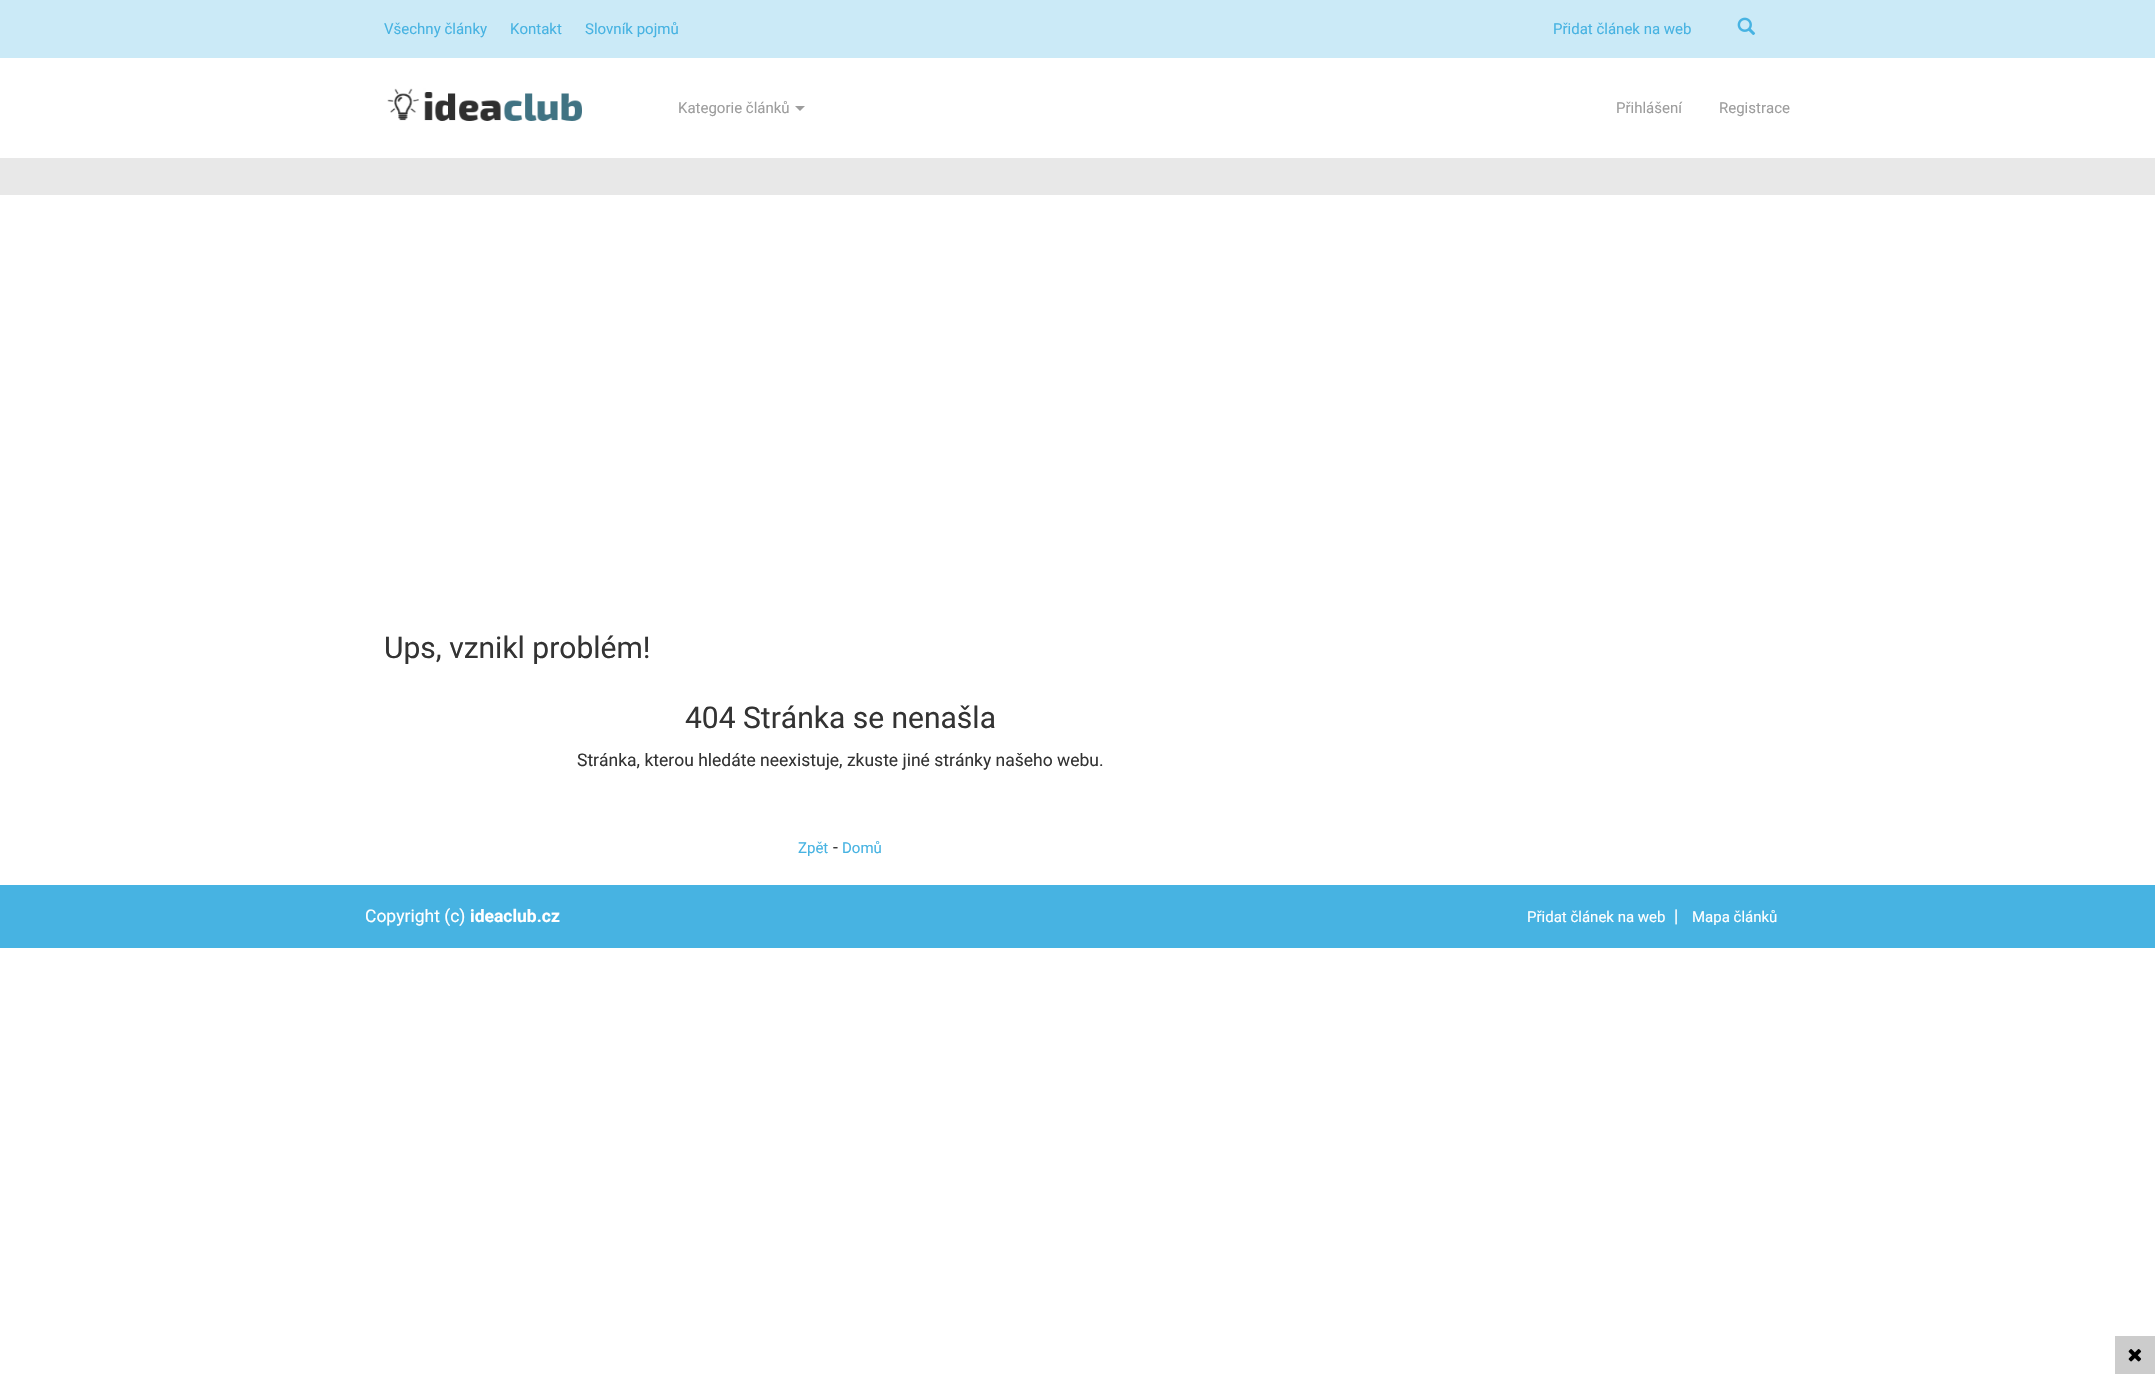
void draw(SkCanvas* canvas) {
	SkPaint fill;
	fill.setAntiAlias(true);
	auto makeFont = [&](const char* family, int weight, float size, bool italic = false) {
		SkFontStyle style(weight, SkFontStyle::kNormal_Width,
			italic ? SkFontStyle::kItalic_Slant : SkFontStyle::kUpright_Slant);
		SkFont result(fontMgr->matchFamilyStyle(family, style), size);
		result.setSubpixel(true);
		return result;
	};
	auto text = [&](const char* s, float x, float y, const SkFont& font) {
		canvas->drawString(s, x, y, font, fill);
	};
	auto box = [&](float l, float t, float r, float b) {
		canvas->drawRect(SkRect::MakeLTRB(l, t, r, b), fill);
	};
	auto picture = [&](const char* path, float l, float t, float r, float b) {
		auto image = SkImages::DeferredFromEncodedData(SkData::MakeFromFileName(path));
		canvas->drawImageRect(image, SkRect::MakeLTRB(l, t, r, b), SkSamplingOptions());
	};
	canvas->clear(0xFFFFFFFF);
	fill.setColor(0xFFCBEAF7);
	box(0, 0, 2155, 58);
	picture("image0.png", 1737, 17, 1756, 35);
	picture("image1.png", 387, 88, 582, 121);
	fill.setColor(0xFF9D9D9D);
	canvas->drawPath(SkPathBuilder().moveTo(795, 106).lineTo(805, 106).lineTo(800, 111).close().detach(), fill);
	fill.setColor(0xFFE8E8E8);
	box(0, 158, 2155, 195);
	fill.setColor(0xFF47B3E2);
	box(0, 885, 2155, 948);
	fill.setColor(0xFFCCCCCC);
	box(2115, 1336, 2155, 1374);
	picture("image2.png", 2128, 1349, 2142, 1362);
	auto font1 = makeFont("Roboto", 400, 15);
	fill.setColor(0xFF47B3E2);
	text("Všechny články", 384, 34, font1);
	text("Kontakt", 510, 34, font1);
	text("Slovník pojmů", 585, 34, font1);
	text("Přidat článek na web", 1553, 34, font1);
	fill.setColor(0xFF9D9D9D);
	text("Kategorie článků", 678, 113, font1);
	text("Přihlášení", 1616, 113, font1);
	text("Registrace", 1719, 113, font1);
	auto font2 = makeFont("Roboto", 400, 30);
	fill.setColor(0xFF333333);
	text("Ups, vznikl problém!", 384, 658, font2);
	text("404 Stránka se nenašla", 685, 728, font2);
	auto font3 = makeFont("Roboto", 400, 17.5f);
	text("Stránka, kterou hledáte neexistuje, zkuste jiné stránky našeho webu.", 577, 766, font3);
	fill.setColor(0xFF47B3E2);
	text("Zpět", 798, 853, font1);
	fill.setColor(0xFF333333);
	text("-", 833, 853, font3);
	fill.setColor(0xFF47B3E2);
	text("Domů", 842, 853, font1);
	fill.setColor(0xFFFFFFFF);
	text("Copyright (c)", 365, 922, font3);
	auto font4 = makeFont("Roboto", 700, 17.5f);
	text("ideaclub.cz", 470, 922, font4);
	text("Přidat článek na web", 1527, 922, font1);
	text("|", 1674, 922, font3);
	text("Mapa článků", 1692, 922, font1);
}
